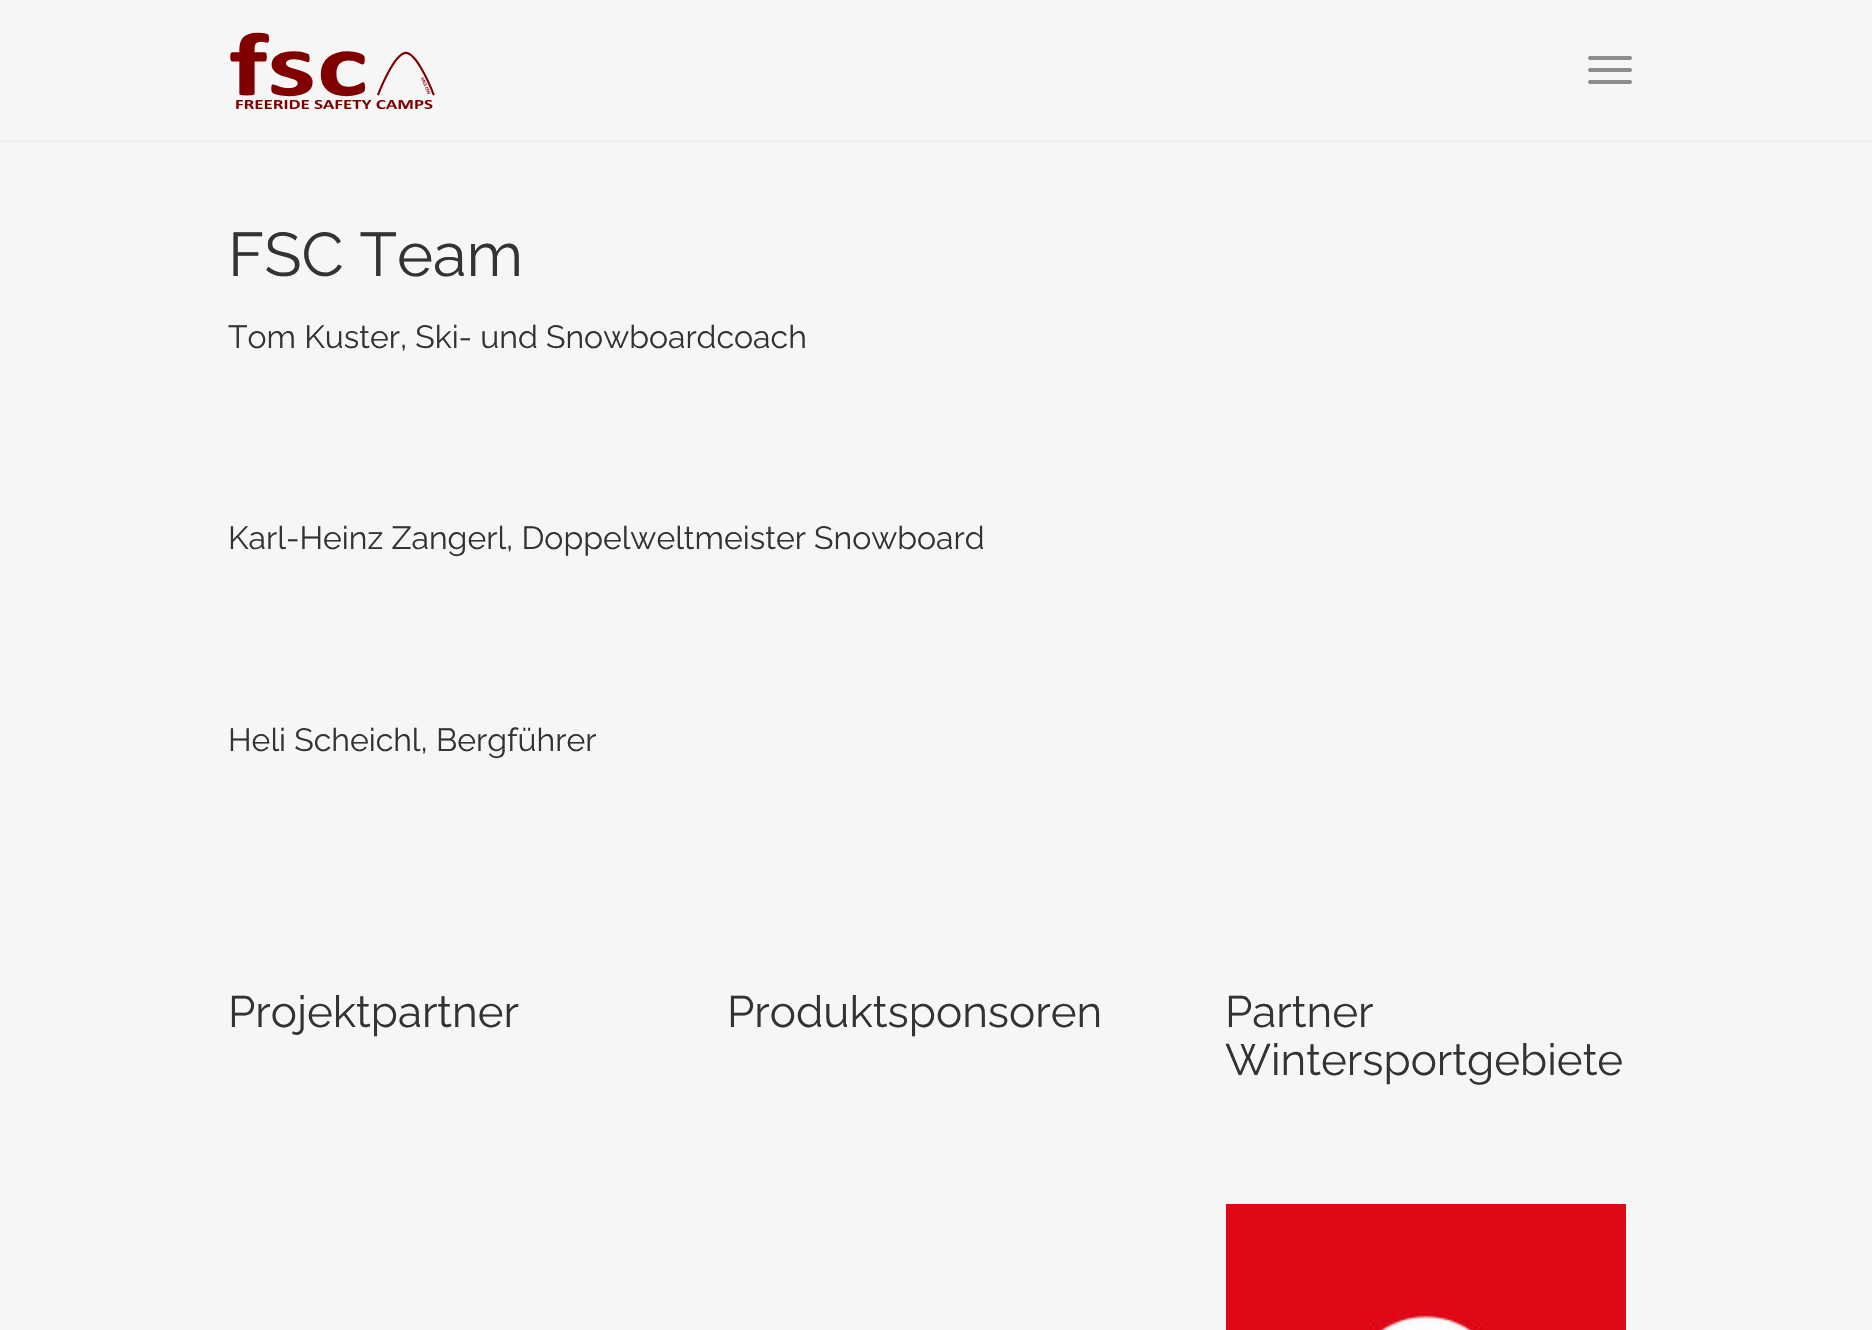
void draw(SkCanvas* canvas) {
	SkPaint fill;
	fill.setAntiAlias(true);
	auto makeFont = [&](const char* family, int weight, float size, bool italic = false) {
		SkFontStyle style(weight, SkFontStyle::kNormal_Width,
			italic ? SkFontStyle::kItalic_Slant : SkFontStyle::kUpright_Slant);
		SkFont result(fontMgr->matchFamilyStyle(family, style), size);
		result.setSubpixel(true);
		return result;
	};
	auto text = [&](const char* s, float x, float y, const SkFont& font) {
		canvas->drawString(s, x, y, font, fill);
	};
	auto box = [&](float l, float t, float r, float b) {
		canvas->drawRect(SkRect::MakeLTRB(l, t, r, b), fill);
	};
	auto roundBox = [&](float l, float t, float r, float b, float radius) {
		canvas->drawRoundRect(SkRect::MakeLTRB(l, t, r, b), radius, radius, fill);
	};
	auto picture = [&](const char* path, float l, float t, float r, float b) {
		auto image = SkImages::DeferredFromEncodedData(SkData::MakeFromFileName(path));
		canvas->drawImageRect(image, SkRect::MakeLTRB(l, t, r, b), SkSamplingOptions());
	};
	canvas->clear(0xFFF6F6F6);
	fill.setColor(0xFFEEEEEE);
	box(0, 140, 1872, 142);
	picture("image0.png", 230, 32, 435, 109);
	fill.setColor(0xFF8C8C8C);
	roundBox(1588, 56, 1632, 60, 2);
	roundBox(1588, 68, 1632, 72, 2);
	roundBox(1588, 80, 1632, 84, 2);
	picture("image1.png", 1226, 1204, 1626, 1330);
	auto font1 = makeFont("Raleway", 100, 61.5f);
	fill.setColor(0xFF333333);
	text("FSC Team", 228, 276, font1);
	auto font2 = makeFont("Raleway", 100, 32);
	text("Tom Kuster, Ski- und Snowboardcoach", 228, 348, font2);
	text("Karl-Heinz Zangerl, Doppelweltmeister Snowboard", 228, 549, font2);
	text("Heli Scheichl, Bergführer", 228, 751, font2);
	auto font3 = makeFont("Raleway", 100, 44);
	text("Projektpartner", 228, 1027, font3);
	text("Produktsponsoren", 727, 1027, font3);
	text("Partner", 1225, 1027, font3);
	text("Wintersportgebiete", 1225, 1075, font3);
}
